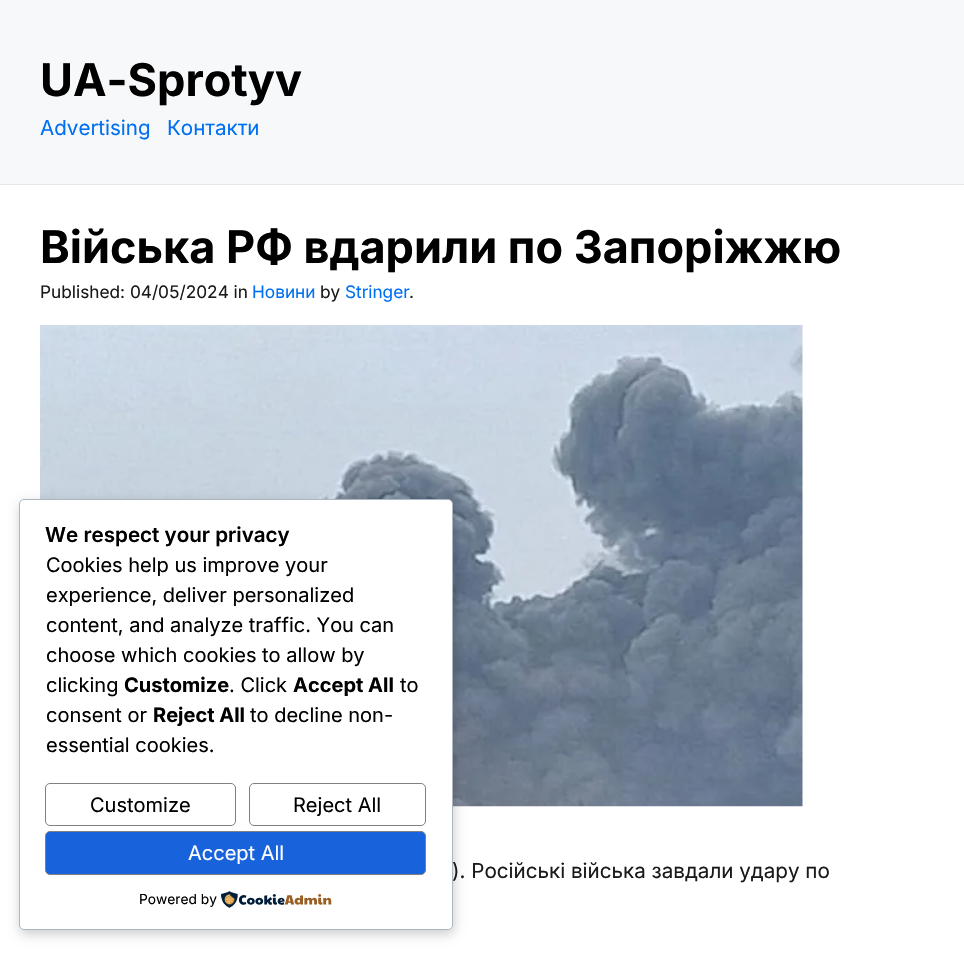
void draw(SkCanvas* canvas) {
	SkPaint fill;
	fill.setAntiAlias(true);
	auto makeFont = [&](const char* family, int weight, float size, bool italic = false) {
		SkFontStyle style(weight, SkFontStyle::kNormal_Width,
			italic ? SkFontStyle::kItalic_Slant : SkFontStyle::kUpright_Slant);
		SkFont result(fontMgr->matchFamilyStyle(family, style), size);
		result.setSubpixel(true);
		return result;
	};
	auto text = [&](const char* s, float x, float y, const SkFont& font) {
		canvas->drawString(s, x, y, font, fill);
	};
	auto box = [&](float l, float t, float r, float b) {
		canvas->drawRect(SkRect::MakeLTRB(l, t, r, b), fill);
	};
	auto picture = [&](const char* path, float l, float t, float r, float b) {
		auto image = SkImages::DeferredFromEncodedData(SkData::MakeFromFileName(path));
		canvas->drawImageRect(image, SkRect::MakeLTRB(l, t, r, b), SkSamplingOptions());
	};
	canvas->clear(0xFFFFFFFF);
	fill.setColor(0xFFF6F8FA);
	box(0, 0, 964, 184);
	fill.setColor(0xFFE5E7EB);
	box(0, 184, 964, 185);
	picture("image0.png", 40, 325, 803, 807);
	fill.setColor(0x33000000);
	fill.setMaskFilter(SkMaskFilter::MakeBlur(kNormal_SkBlurStyle, 6));
	canvas->drawRoundRect(SkRect::MakeLTRB(20, 503, 454, 934), 5, 5, fill);
	fill.setMaskFilter(nullptr);
	auto font1 = makeFont("Inter", 700, 45);
	fill.setColor(0xFF000000);
	text("UA-Sprotyv", 40, 96, font1);
	auto font2 = makeFont("Inter", 400, 20.6f);
	fill.setColor(0xFF0070F3);
	text("Advertising", 40, 135, font2);
	text("Контакти", 167, 135, font2);
	fill.setColor(0xFF000000);
	text("Війська РФ вдарили по Запоріжжю", 40, 263, font1);
	auto font3 = makeFont("Inter", 400, 17.25f);
	fill.setColor(0xFF1A1A1A);
	text("Published: 04/05/2024 in", 40, 298, font3);
	fill.setColor(0xFF0070F3);
	text("Новини", 252, 298, font3);
	fill.setColor(0xFF1A1A1A);
	text("by", 320, 298, font3);
	fill.setColor(0xFF0070F3);
	text("Stringer", 345, 298, font3);
	fill.setColor(0xFF1A1A1A);
	text(".", 409, 298, font3);
	text("). Російські війська завдали удару по", 452, 878, font2);
	fill.setColor(0xFFFFFFFF);
	canvas->drawRoundRect(SkRect::MakeLTRB(19.5f, 499.5f, 452.5f, 929.5f), 4.5f, 4.5f, fill);
	fill.setStyle(SkPaint::kStroke_Style);
	fill.setStrokeWidth(1);
	fill.setColor(0xFFABB8C3);
	canvas->drawRoundRect(SkRect::MakeLTRB(19.5f, 499.5f, 452.5f, 929.5f), 4.5f, 4.5f, fill);
	auto font4 = makeFont("Inter", 600, 20.6f);
	fill.setStyle(SkPaint::kFill_Style);
	fill.setColor(0xFF000000);
	text("We respect your privacy", 45, 542, font4);
	auto font5 = makeFont("Inter", 400, 20);
	text("Cookies help us improve your", 46, 572, font5);
	text("experience, deliver personalized", 46, 602, font5);
	text("content, and analyze traffic. You can", 46, 632, font5);
	text("choose which cookies to allow by", 46, 662, font5);
	text("clicking", 46, 692, font5);
	auto font6 = makeFont("Inter", 700, 20);
	text("Customize", 124, 692, font6);
	text(". Click", 229, 692, font5);
	text("Accept All", 293, 692, font6);
	text("to", 400, 692, font5);
	text("consent or", 46, 722, font5);
	text("Reject All", 153, 722, font6);
	text("to decline non-", 250, 722, font5);
	text("essential cookies.", 46, 752, font5);
	fill.setStyle(SkPaint::kStroke_Style);
	fill.setColor(0xFF808080);
	canvas->drawRoundRect(SkRect::MakeLTRB(45.5f, 783.5f, 235.5f, 825.5f), 4.5f, 4.5f, fill);
	fill.setStyle(SkPaint::kFill_Style);
	fill.setColor(0xFF000000);
	text("Customize", 90, 812, font5);
	fill.setStyle(SkPaint::kStroke_Style);
	fill.setColor(0xFF808080);
	canvas->drawRoundRect(SkRect::MakeLTRB(249.5f, 783.5f, 425.5f, 825.5f), 4.5f, 4.5f, fill);
	fill.setStyle(SkPaint::kFill_Style);
	fill.setColor(0xFF000000);
	text("Reject All", 293, 812, font5);
	fill.setColor(0xFF1863DC);
	canvas->drawRoundRect(SkRect::MakeLTRB(45.5f, 831.5f, 425.5f, 874.5f), 4.5f, 4.5f, fill);
	fill.setStyle(SkPaint::kStroke_Style);
	fill.setColor(0xFF808080);
	canvas->drawRoundRect(SkRect::MakeLTRB(45.5f, 831.5f, 425.5f, 874.5f), 4.5f, 4.5f, fill);
	fill.setStyle(SkPaint::kFill_Style);
	fill.setColor(0xFFFFFFFF);
	text("Accept All", 188, 860, font5);
	auto font7 = makeFont("Inter", 400, 13.75f);
	fill.setColor(0xFF000000);
	text("Powered by", 139, 904, font7);
	picture("image1.png", 221, 891, 332, 908);
}
